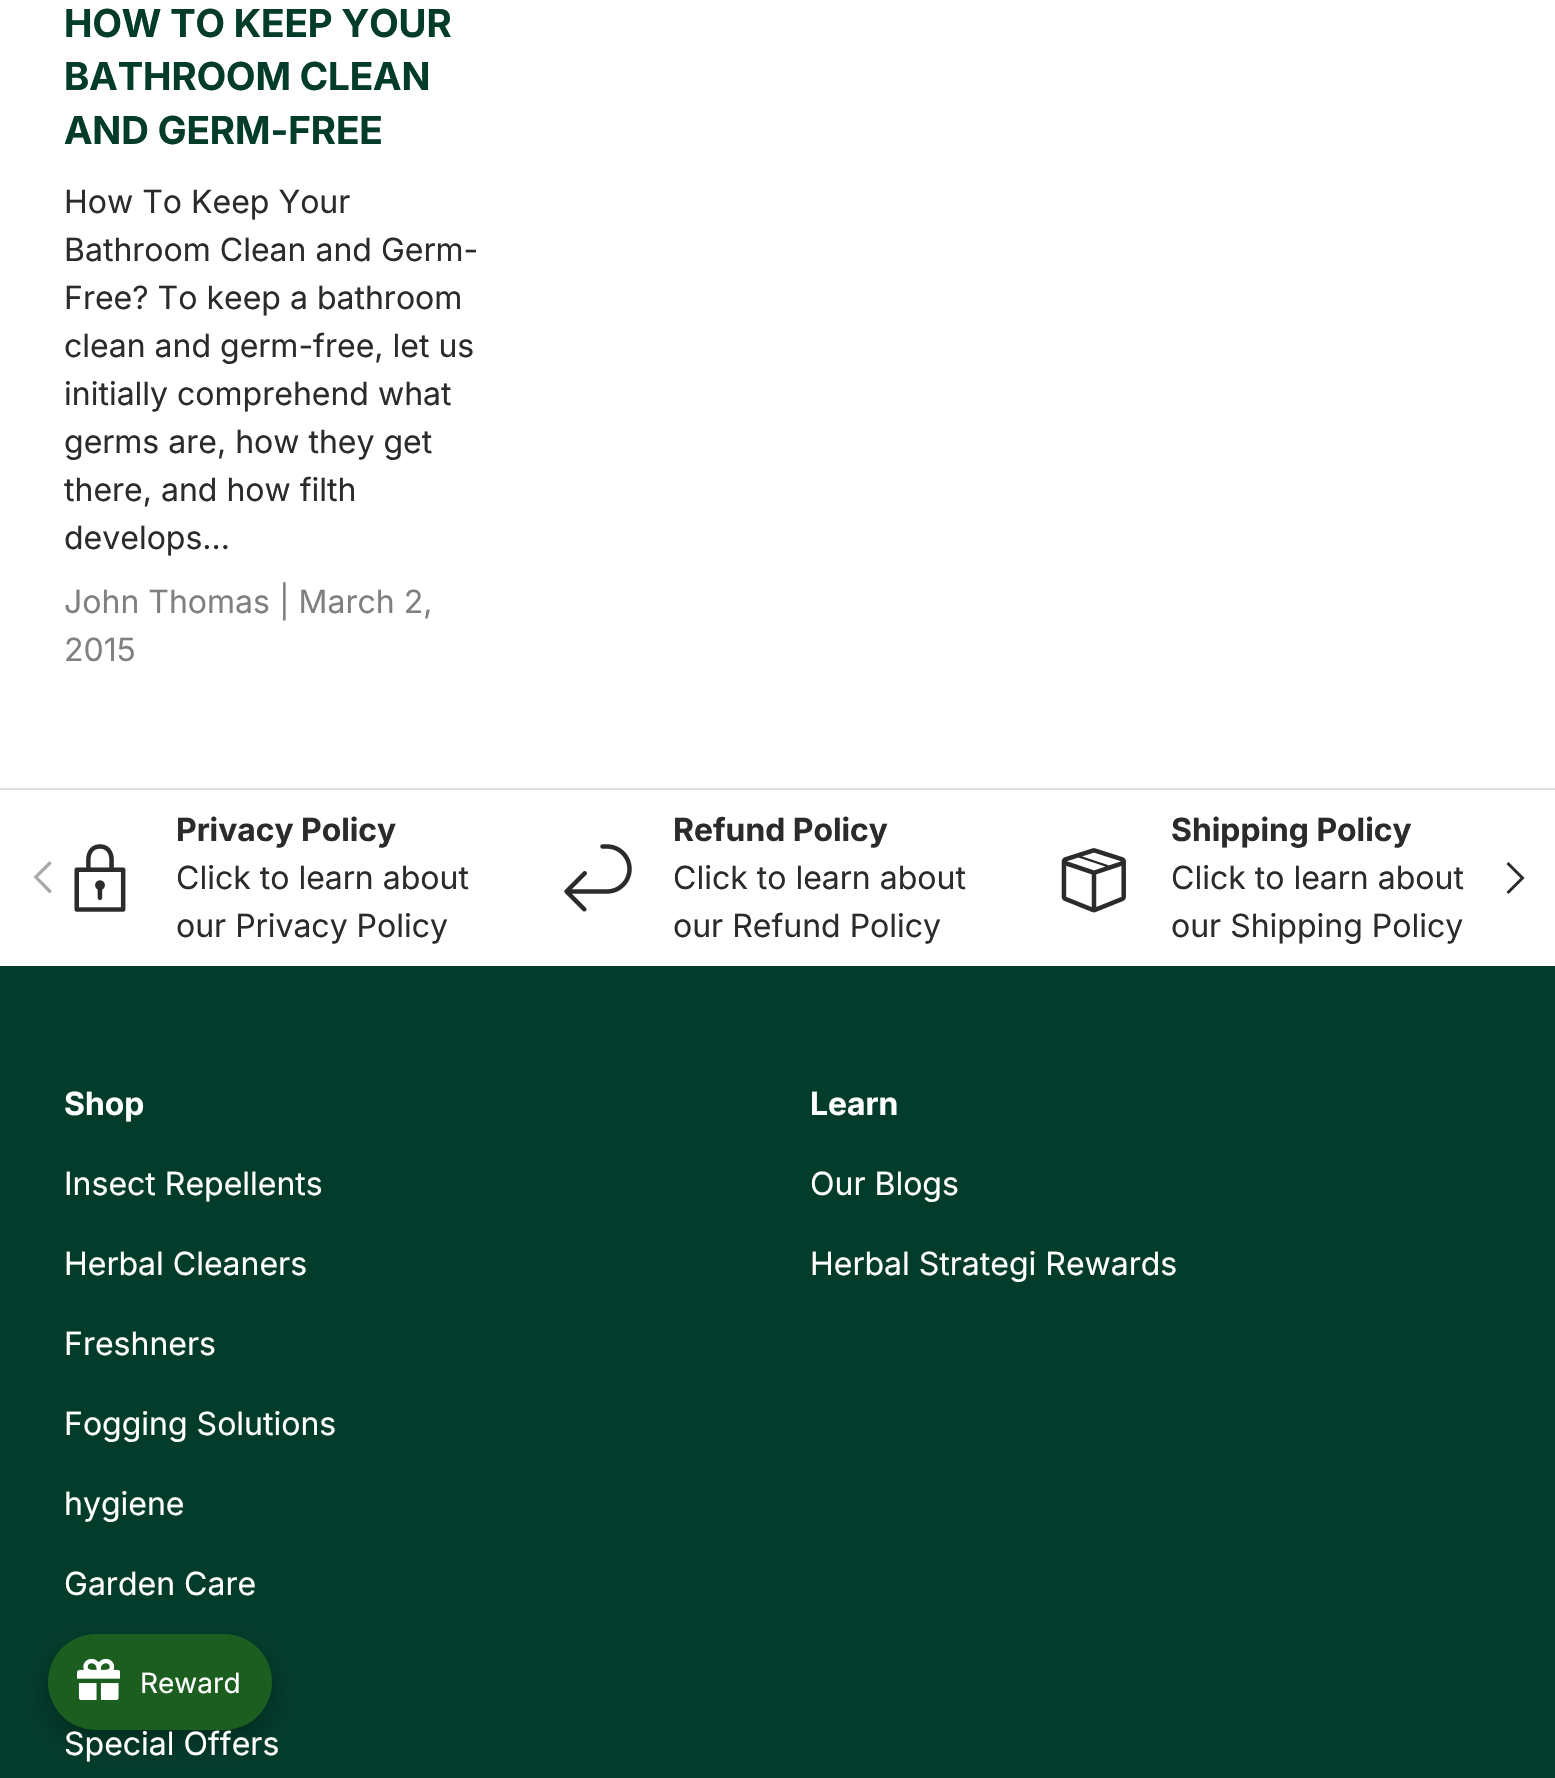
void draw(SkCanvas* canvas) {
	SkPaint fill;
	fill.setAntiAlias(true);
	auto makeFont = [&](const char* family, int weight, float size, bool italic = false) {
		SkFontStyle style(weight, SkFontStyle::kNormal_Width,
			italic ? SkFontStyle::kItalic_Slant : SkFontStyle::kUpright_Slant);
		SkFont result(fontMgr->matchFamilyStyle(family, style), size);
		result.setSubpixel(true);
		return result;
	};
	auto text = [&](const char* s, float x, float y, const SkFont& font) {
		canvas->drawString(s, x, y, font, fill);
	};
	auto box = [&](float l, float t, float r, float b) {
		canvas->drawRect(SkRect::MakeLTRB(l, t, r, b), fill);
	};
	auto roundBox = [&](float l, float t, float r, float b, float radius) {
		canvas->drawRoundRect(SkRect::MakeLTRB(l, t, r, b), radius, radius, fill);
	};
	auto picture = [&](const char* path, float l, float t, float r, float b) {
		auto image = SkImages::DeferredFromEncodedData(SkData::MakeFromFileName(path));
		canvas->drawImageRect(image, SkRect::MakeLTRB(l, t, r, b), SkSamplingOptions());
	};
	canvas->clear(0xFFFFFFFF);
	fill.setColor(0xFFDFDFDF);
	box(0, 788, 1555, 790);
	picture("image0.png", 74, 844, 126, 912);
	picture("image1.png", 564, 844, 632, 912);
	picture("image2.png", 1061, 848, 1126, 913);
	fill.setColor(0xFFAAAAAA);
	canvas->drawPath(SkPathBuilder().moveTo(33.5f, 877).lineTo(49.5f, 861).lineTo(52, 863.5f).lineTo(38, 877).lineTo(52, 891).lineTo(49.5f, 893.5f).close().detach(), fill);
	fill.setStyle(SkPaint::kStroke_Style);
	fill.setStrokeWidth(3);
	fill.setColor(0xFF2A2B2A);
	canvas->drawPath(SkPathBuilder().moveTo(1507.5f, 863).lineTo(1522.5f, 878).lineTo(1507.5f, 893).detach(), fill);
	fill.setStyle(SkPaint::kFill_Style);
	fill.setColor(0xFF043C2C);
	box(0, 966, 1555, 1778);
	fill.setColor(0x40000000);
	fill.setMaskFilter(SkMaskFilter::MakeBlur(kNormal_SkBlurStyle, 12));
	canvas->drawRoundRect(SkRect::MakeLTRB(48, 1646, 272, 1742), 48, 48, fill);
	fill.setMaskFilter(nullptr);
	fill.setColor(0xFF1B5E20);
	roundBox(48, 1634, 272, 1730, 48);
	picture("image3.png", 77, 1658, 120, 1700);
	auto font1 = makeFont("Inter", 700, 38.5f);
	fill.setColor(0xFF043C2C);
	text("HOW TO KEEP YOUR", 64, 37, font1);
	text("BATHROOM CLEAN", 64, 90, font1);
	text("AND GERM-FREE", 64, 144, font1);
	auto font2 = makeFont("Inter", 400, 32);
	fill.setColor(0xFF2A2B2A);
	text("How To Keep Your", 64, 213, font2);
	text("Bathroom Clean and Germ-", 64, 261, font2);
	text("Free? To keep a bathroom", 64, 309, font2);
	text("clean and germ-free, let us", 64, 357, font2);
	text("initially comprehend what", 64, 405, font2);
	text("germs are, how they get", 64, 453, font2);
	text("there, and how filth", 64, 501, font2);
	text("develops...", 64, 549, font2);
	fill.setColor(0xFF7F807F);
	text("John Thomas | March 2,", 64, 613, font2);
	text("2015", 64, 661, font2);
	auto font3 = makeFont("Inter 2", 700, 32);
	fill.setColor(0xFF2A2B2A);
	text("Privacy Policy", 176, 841, font3);
	text("Click to learn about", 176, 889, font2);
	text("our Privacy Policy", 176, 937, font2);
	text("Refund Policy", 673, 841, font3);
	text("Click to learn about", 673, 889, font2);
	text("our Refund Policy", 673, 937, font2);
	text("Shipping Policy", 1171, 841, font3);
	text("Click to learn about", 1171, 889, font2);
	text("our Shipping Policy", 1171, 937, font2);
	fill.setColor(0xFFFFFFFF);
	text("Shop", 64, 1115, font3);
	text("Insect Repellents", 64, 1195, font2);
	text("Herbal Cleaners", 64, 1275, font2);
	text("Freshners", 64, 1355, font2);
	text("Fogging Solutions", 64, 1435, font2);
	text("hygiene", 64, 1515, font2);
	text("Garden Care", 64, 1595, font2);
	text("Special Offers", 64, 1755, font2);
	text("Learn", 810, 1115, font3);
	text("Our Blogs", 810, 1195, font2);
	text("Herbal Strategi Rewards", 810, 1275, font2);
	auto font4 = makeFont("Inter", 400, 28);
	text("Reward", 140, 1693, font4);
}
